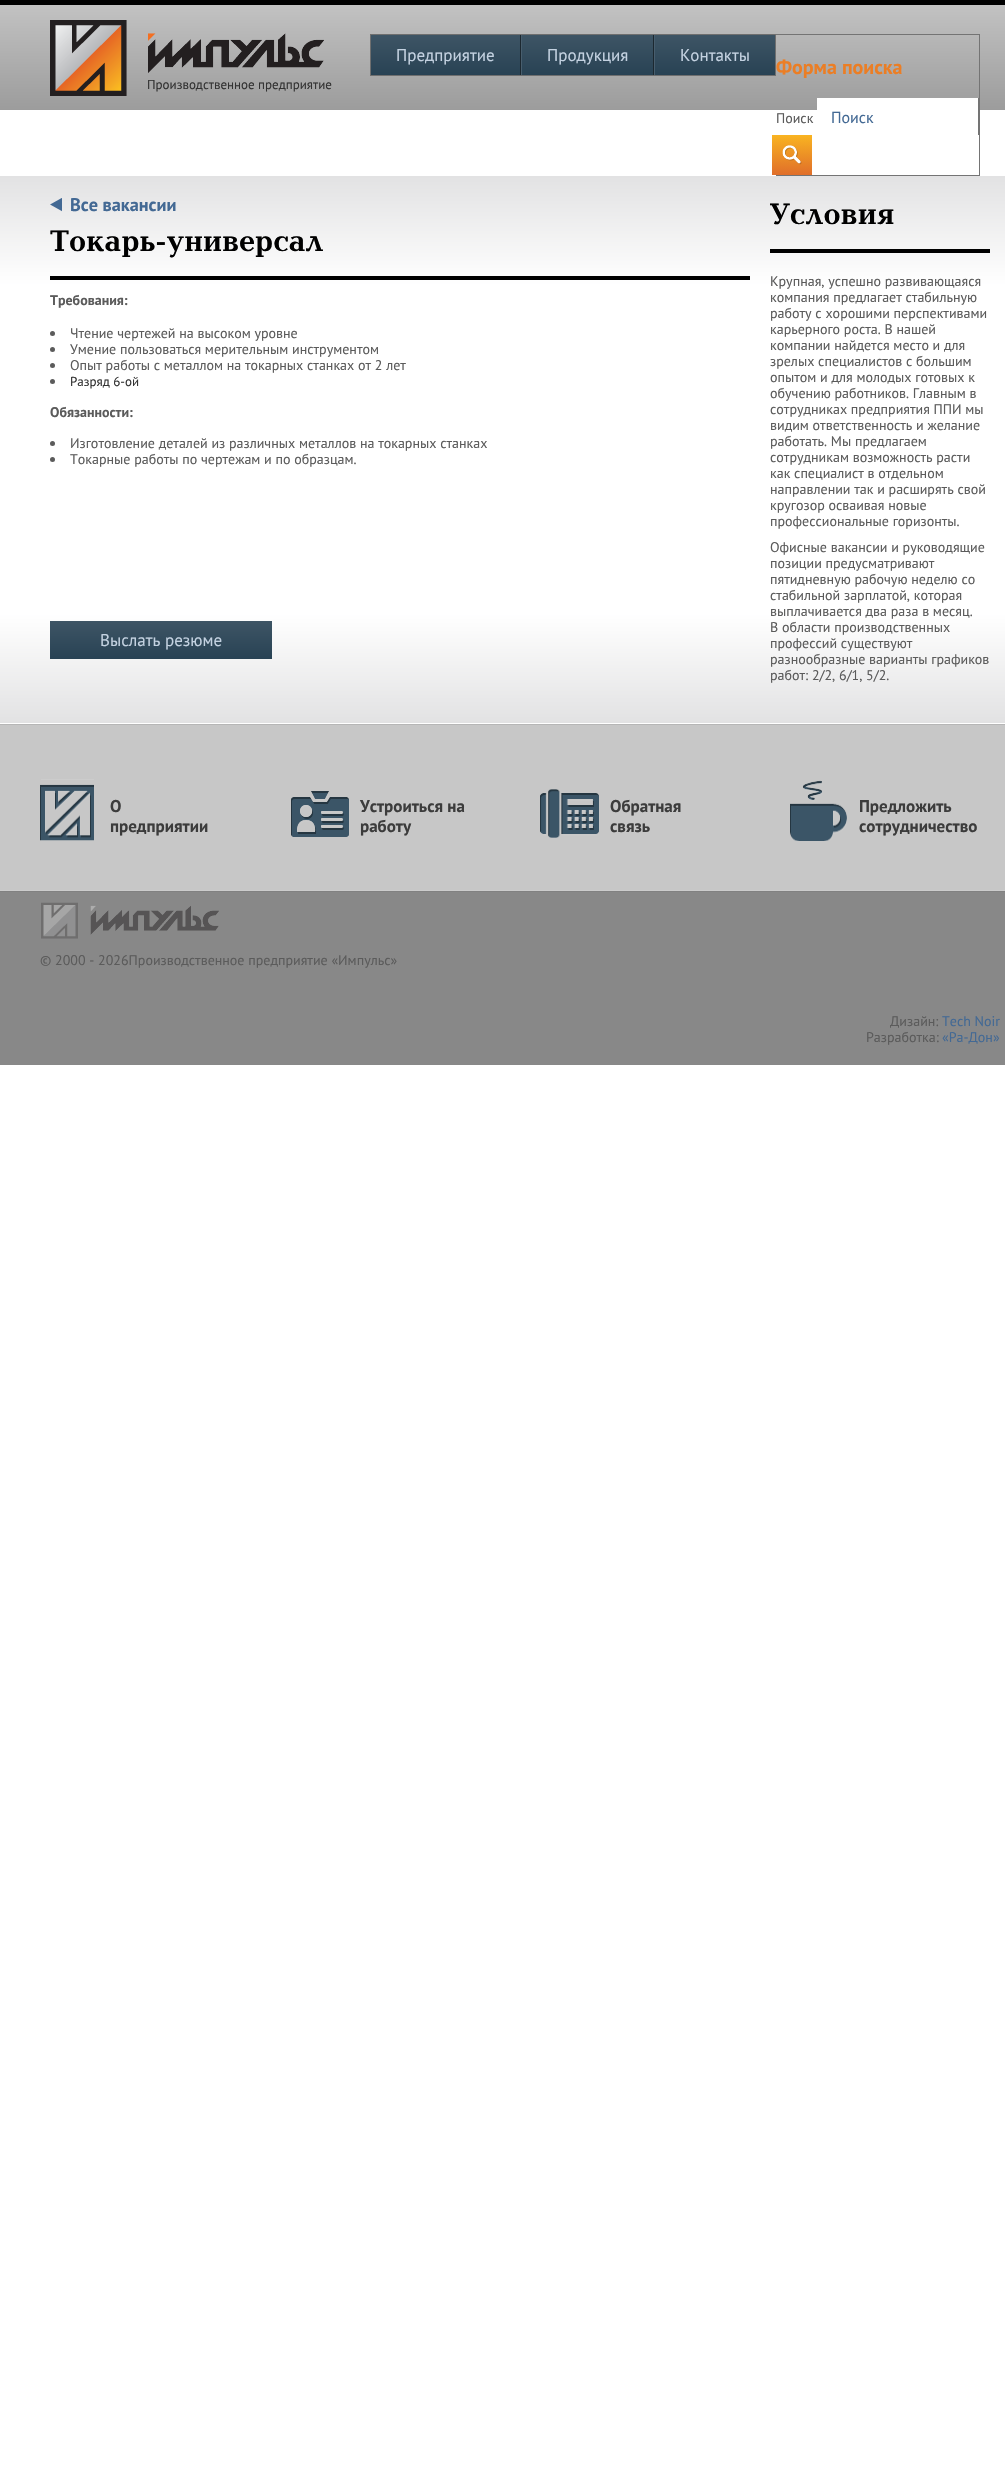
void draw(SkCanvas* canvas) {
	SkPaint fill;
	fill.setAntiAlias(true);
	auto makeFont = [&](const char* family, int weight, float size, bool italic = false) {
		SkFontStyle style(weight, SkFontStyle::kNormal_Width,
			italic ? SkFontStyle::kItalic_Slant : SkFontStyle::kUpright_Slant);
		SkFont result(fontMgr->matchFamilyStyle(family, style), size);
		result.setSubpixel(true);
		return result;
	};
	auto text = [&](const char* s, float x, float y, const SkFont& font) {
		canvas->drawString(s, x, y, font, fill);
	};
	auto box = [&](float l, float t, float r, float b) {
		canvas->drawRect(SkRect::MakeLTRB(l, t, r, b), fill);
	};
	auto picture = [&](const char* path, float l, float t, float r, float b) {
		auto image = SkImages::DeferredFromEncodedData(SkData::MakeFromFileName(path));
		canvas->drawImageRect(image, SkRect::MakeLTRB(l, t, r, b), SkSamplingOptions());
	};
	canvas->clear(0xFFFFFFFF);
	{
		const SkColor colors[] = {0xFF9C9C9C, 0xFFC2C2C2};
		const float stops[] = {0, 1};
		const SkPoint ends[] = {{503, 110}, {503, 5}};
		fill.setShader(SkGradientShader::MakeLinear(ends, colors, stops, 2, SkTileMode::kClamp));
		fill.setAlpha(255);
	}
	box(0, 5, 1005, 110);
	fill.setShader(nullptr);
	fill.setColor(0xFF000000);
	box(0, 0, 1005, 5);
	picture("image0.png", 50, 20, 324, 96);
	fill.setStyle(SkPaint::kStroke_Style);
	fill.setStrokeWidth(1);
	fill.setColor(0xFF6F6F6F);
	canvas->drawRect(SkRect::MakeLTRB(370.5f, 34.5f, 775.5f, 75.5f), fill);
	fill.setStyle(SkPaint::kFill_Style);
	{
		const SkColor colors[] = {0xFF284254, 0xFF3E5565};
		const float stops[] = {0, 1};
		const SkPoint ends[] = {{446, 75}, {446, 35}};
		fill.setShader(SkGradientShader::MakeLinear(ends, colors, stops, 2, SkTileMode::kClamp));
		fill.setAlpha(255);
	}
	box(371, 35, 520, 75);
	fill.setShader(nullptr);
	fill.setColor(0xFF1C2830);
	box(520, 35, 521, 75);
	{
		const SkColor colors[] = {0xFF284254, 0xFF3E5565};
		const float stops[] = {0, 1};
		const SkPoint ends[] = {{588, 75}, {588, 35}};
		fill.setShader(SkGradientShader::MakeLinear(ends, colors, stops, 2, SkTileMode::kClamp));
		fill.setAlpha(255);
	}
	box(522, 35, 653, 75);
	fill.setShader(nullptr);
	fill.setColor(0xFF1C2830);
	box(653, 35, 654, 75);
	fill.setColor(0xFF485E6E);
	box(521, 35, 522, 75);
	{
		const SkColor colors[] = {0xFF284254, 0xFF3E5565};
		const float stops[] = {0, 1};
		const SkPoint ends[] = {{715, 75}, {715, 35}};
		fill.setShader(SkGradientShader::MakeLinear(ends, colors, stops, 2, SkTileMode::kClamp));
		fill.setAlpha(255);
	}
	box(655, 35, 775, 75);
	fill.setShader(nullptr);
	fill.setColor(0xFF485E6E);
	box(654, 35, 655, 75);
	fill.setColor(0xFF747474);
	box(776, 34, 980, 35);
	box(979, 34, 980, 176);
	box(776, 175, 980, 176);
	fill.setColor(0xFFFFFFFF);
	box(817, 98, 978, 110);
	fill.setColor(0xFF747474);
	box(978, 98, 979, 135);
	picture("image1.png", 772, 135, 812, 175);
	{
		const SkColor colors[] = {0xFFE2E2E3, 0xFFFFFFFF, 0xFFFFFFFF, 0xFFE2E2E3};
		const float stops[] = {0, 0.2f, 0.8f, 1};
		const SkPoint ends[] = {{503, 723}, {503, 176}};
		fill.setShader(SkGradientShader::MakeLinear(ends, colors, stops, 4, SkTileMode::kClamp));
		fill.setAlpha(255);
	}
	box(0, 176, 1005, 723);
	picture("image2.png", 50, 198, 62, 212);
	fill.setShader(nullptr);
	fill.setColor(0xFF000000);
	box(50, 276, 750, 280);
	fill.setColor(0xFF5B5B5B);
	canvas->drawCircle(52.5f, 333.5f, 2.5f, fill);
	canvas->drawCircle(52.5f, 349.5f, 2.5f, fill);
	canvas->drawCircle(52.5f, 365.5f, 2.5f, fill);
	canvas->drawCircle(52.5f, 381.5f, 2.5f, fill);
	canvas->drawCircle(52.5f, 443.5f, 2.5f, fill);
	canvas->drawCircle(52.5f, 459.5f, 2.5f, fill);
	{
		const SkColor colors[] = {0xFF284254, 0xFF3E5565};
		const float stops[] = {0, 1};
		const SkPoint ends[] = {{161, 659}, {161, 621}};
		fill.setShader(SkGradientShader::MakeLinear(ends, colors, stops, 2, SkTileMode::kClamp));
		fill.setAlpha(255);
	}
	box(50, 621, 272, 659);
	fill.setShader(nullptr);
	fill.setColor(0xFF000000);
	box(770, 249, 990, 253);
	fill.setColor(0xFFC7C7C7);
	box(0, 725, 1005, 890);
	fill.setColor(0xFFB6B6B6);
	box(0, 724, 1005, 725);
	fill.setColor(0xFFCCCCCC);
	box(0, 890, 1005, 891);
	picture("image3.png", 40, 779, 94, 841);
	picture("image4.png", 291, 791, 349, 837);
	picture("image5.png", 540, 789, 599, 838);
	picture("image6.png", 790, 780, 847, 841);
	fill.setColor(0xFF888888);
	box(0, 892, 1005, 1065);
	fill.setColor(0xFF818181);
	box(0, 891, 1005, 892);
	picture("image7.png", 41, 902, 219, 939);
	auto font1 = makeFont("PT Sans", 400, 13);
	fill.setColor(0xFF333333);
	text("Производственное предприятие", 147, 89, font1);
	auto font2 = makeFont("PT Sans", 400, 17);
	fill.setColor(0xFFC4D2E1);
	text("Предприятие", 396, 61, font2);
	text("Продукция", 547, 61, font2);
	text("Контакты", 680, 61, font2);
	auto font3 = makeFont("PT Sans", 700, 20);
	fill.setColor(0xFFEB7E25);
	text("Форма поиска", 776, 74, font3);
	auto font4 = makeFont("PT Sans", 400, 14);
	fill.setColor(0xFF5B5B5B);
	text("Поиск", 776, 123, font4);
	auto font5 = makeFont("PT Sans", 400, 16);
	fill.setColor(0xFF436994);
	text("Поиск", 831, 123, font5);
	auto font6 = makeFont("PT Sans", 700, 18.25f);
	text("Все вакансии", 70, 211, font6);
	auto font7 = makeFont("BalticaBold", 700, 29);
	fill.setColor(0xFF000000);
	text("Токарь-универсал", 50, 251, font7);
	auto font8 = makeFont("PT Sans", 700, 14);
	fill.setColor(0xFF5B5B5B);
	text("Требования:", 50, 305, font8);
	text("Чтение чертежей на высоком уровне", 70, 338, font4);
	text("Умение пользоваться мерительным инструментом", 70, 354, font4);
	text("Опыт работы с металлом на токарных станках от 2 лет", 70, 370, font4);
	fill.setColor(0xFF333333);
	text("Разряд 6-ой", 70, 386, font1);
	fill.setColor(0xFF5B5B5B);
	text("Обязанности:", 50, 417, font8);
	text("Изготовление деталей из различных металлов на токарных станках", 70, 448, font4);
	text("Токарные работы по чертежам и по образцам.", 70, 464, font4);
	fill.setColor(0xFFC4D2E1);
	text("Выслать резюме", 100, 646, font2);
	fill.setColor(0xFF000000);
	text("Условия", 770, 224, font7);
	fill.setColor(0xFF5B5B5B);
	text("Крупная, успешно развивающаяся", 770, 286, font4);
	text("компания предлагает стабильную", 770, 302, font4);
	text("работу с хорошими перспективами", 770, 318, font4);
	text("карьерного роста. В нашей", 770, 334, font4);
	text("компании найдется место и для", 770, 350, font4);
	text("зрелых специалистов с большим", 770, 366, font4);
	text("опытом и для молодых готовых к", 770, 382, font4);
	text("обучению работников. Главным в", 770, 398, font4);
	text("сотрудниках предприятия ППИ мы", 770, 414, font4);
	text("видим ответственность и желание", 770, 430, font4);
	text("работать. Мы предлагаем", 770, 446, font4);
	text("сотрудникам возможность расти", 770, 462, font4);
	text("как специалист в отдельном", 770, 478, font4);
	text("направлении так и расширять свой", 770, 494, font4);
	text("кругозор осваивая новые", 770, 510, font4);
	text("профессиональные горизонты.", 770, 526, font4);
	text("Офисные вакансии и руководящие", 770, 552, font4);
	text("позиции предусматривают", 770, 568, font4);
	text("пятидневную рабочую неделю со", 770, 584, font4);
	text("стабильной зарплатой, которая", 770, 600, font4);
	text("выплачивается два раза в месяц.", 770, 616, font4);
	text("В области производственных", 770, 632, font4);
	text("профессий существуют", 770, 648, font4);
	text("разнообразные варианты графиков", 770, 664, font4);
	text("работ: 2/2, 6/1, 5/2.", 770, 680, font4);
	auto font9 = makeFont("PT Sans", 700, 17);
	fill.setColor(0xFF3C3C3C);
	text("О", 110, 812, font9);
	text("предприятии", 110, 832, font9);
	text("Устроиться на", 360, 812, font9);
	text("работу", 360, 832, font9);
	text("Обратная", 610, 812, font9);
	text("связь", 610, 832, font9);
	text("Предложить", 859, 812, font9);
	text("сотрудничество", 859, 832, font9);
	fill.setColor(0xFF5B5B5B);
	text("© 2000 - 2026Производственное предприятие «Импульс»", 40, 965, font4);
	text("Дизайн:", 890, 1026, font4);
	fill.setColor(0xFF436994);
	text("Tech Noir", 942, 1026, font4);
	fill.setColor(0xFF5B5B5B);
	text("Разработка:", 866, 1042, font4);
	fill.setColor(0xFF436994);
	text("«Ра-Дон»", 942, 1042, font4);
}
